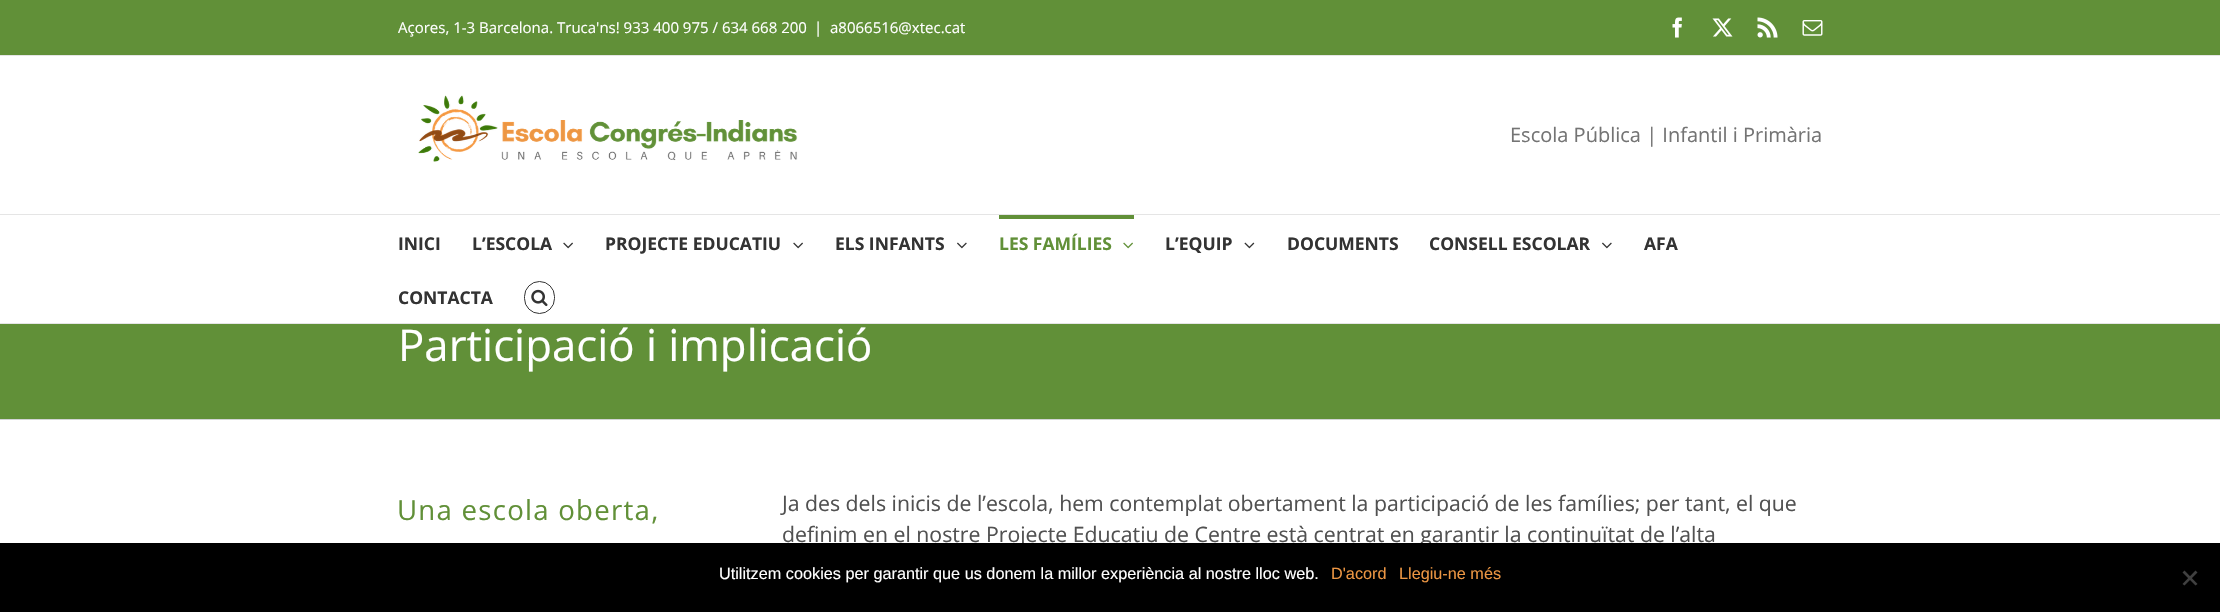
void draw(SkCanvas* canvas) {
	SkPaint fill;
	fill.setAntiAlias(true);
	auto makeFont = [&](const char* family, int weight, float size, bool italic = false) {
		SkFontStyle style(weight, SkFontStyle::kNormal_Width,
			italic ? SkFontStyle::kItalic_Slant : SkFontStyle::kUpright_Slant);
		SkFont result(fontMgr->matchFamilyStyle(family, style), size);
		result.setSubpixel(true);
		return result;
	};
	auto text = [&](const char* s, float x, float y, const SkFont& font) {
		canvas->drawString(s, x, y, font, fill);
	};
	auto spacedText = [&](const char* s, float x, float y, const SkFont& font, const SkPaint& ink, float letter, float word) {
		std::vector<SkGlyphID> glyphs(font.countText(s, strlen(s), SkTextEncoding::kUTF8));
		std::vector<float> xs(glyphs.size());
		font.textToGlyphs(s, strlen(s), SkTextEncoding::kUTF8, glyphs);
		font.getXPos(glyphs, xs, x);
		float extra = 0;
		for (size_t i = 0; i < glyphs.size(); i++) {
			xs[i] += extra;
			extra += letter + word * (glyphs[i] == font.unicharToGlyph(' '));
		}
		canvas->drawTextBlob(SkTextBlob::MakeFromPosHGlyphs(glyphs, xs, y, font), 0, 0, ink);
	};
	auto box = [&](float l, float t, float r, float b) {
		canvas->drawRect(SkRect::MakeLTRB(l, t, r, b), fill);
	};
	auto picture = [&](const char* path, float l, float t, float r, float b) {
		auto image = SkImages::DeferredFromEncodedData(SkData::MakeFromFileName(path));
		canvas->drawImageRect(image, SkRect::MakeLTRB(l, t, r, b), SkSamplingOptions());
	};
	canvas->clear(0xFFFFFFFF);
	fill.setColor(0xFF619038);
	box(0, 0, 2220, 55);
	fill.setColor(0xFFE5E5E5);
	box(0, 55, 2220, 56);
	picture("image0.png", 1672, 17, 1682, 38);
	picture("image1.png", 1712, 18, 1733, 37);
	picture("image2.png", 1757, 17, 1778, 38);
	picture("image3.png", 1802, 20, 1823, 36);
	box(0, 214, 2220, 215);
	picture("image4.png", 418, 95, 798, 162);
	box(0, 323, 2220, 324);
	picture("image5.png", 563, 242, 573, 249);
	picture("image5.png", 793, 242, 803, 249);
	picture("image6.png", 957, 242, 967, 249);
	fill.setColor(0xFF619038);
	box(999, 215, 1134, 219);
	picture("image7.png", 1123, 242, 1133, 249);
	picture("image8.png", 1244, 242, 1255, 249);
	picture("image6.png", 1602, 242, 1612, 249);
	fill.setStyle(SkPaint::kStroke_Style);
	fill.setStrokeWidth(1);
	fill.setColor(0xFF333333);
	canvas->drawRoundRect(SkRect::MakeLTRB(524.5f, 281.5f, 554.5f, 313.5f), 15, 15, fill);
	picture("image9.png", 531, 289, 548, 307);
	fill.setStyle(SkPaint::kFill_Style);
	fill.setColor(0xFF619038);
	box(0, 324, 2220, 419);
	fill.setColor(0xFFD2D3D4);
	box(0, 419, 2220, 420);
	auto font1 = makeFont("Open Sans", 400, 15);
	fill.setColor(0xFFFFFFFF);
	text("Açores, 1-3 Barcelona. Truca'ns! 933 400 975 / 634 668 200", 398, 33, font1);
	text("|", 814, 33, font1);
	text("a8066516@xtec.cat", 830, 33, font1);
	auto font2 = makeFont("Open Sans", 400, 20);
	fill.setColor(0xFF747474);
	text("Escola Pública | Infantil i Primària", 1510, 142, font2);
	auto font3 = makeFont("Open Sans", 700, 17.5f);
	fill.setColor(0xFF333333);
	text("INICI", 398, 250, font3);
	text("L’ESCOLA", 472, 250, font3);
	text("PROJECTE EDUCATIU", 605, 250, font3);
	text("ELS INFANTS", 835, 250, font3);
	fill.setColor(0xFF619038);
	text("LES FAMÍLIES", 999, 250, font3);
	fill.setColor(0xFF333333);
	text("L’EQUIP", 1165, 250, font3);
	text("DOCUMENTS", 1287, 250, font3);
	text("CONSELL ESCOLAR", 1429, 250, font3);
	text("AFA", 1644, 250, font3);
	text("CONTACTA", 398, 304, font3);
	auto font4 = makeFont("Open Sans", 400, 43.75f);
	fill.setColor(0xFFFFFFFF);
	text("Participació i implicació", 398, 361, font4);
	auto font5 = makeFont("Open Sans", 400, 27.6f);
	fill.setColor(0xFF619038);
	spacedText("Una escola oberta,", 397, 520, font5, fill, 1.25f, 0);
	auto font6 = makeFont("Open Sans", 400, 21.25f);
	fill.setColor(0xFF515151);
	text("Ja des dels inicis de l’escola, hem contemplat obertament la participació de les famílies; per tant, el que", 782, 511, font6);
	text("definim en el nostre Projecte Educatiu de Centre està centrat en garantir la continuïtat de l’alta", 782, 542, font6);
	fill.setColor(0xFF000000);
	box(0, 543, 2220, 612);
	auto font7 = makeFont("Liberation Sans", 400, 16.25f);
	fill.setColor(0xFFFFFFFF);
	text("Utilitzem cookies per garantir que us donem la millor experiència al nostre lloc web.", 719, 579, font7);
	fill.setColor(0xFFEC9643);
	text("D'acord", 1331, 579, font7);
	text("Llegiu-ne més", 1399, 579, font7);
	fill.setColor(0xFF404040);
	canvas->drawPath(SkPathBuilder().moveTo(2195.5f, 570.5f).lineTo(2197.5f, 572.5f).lineTo(2184.5f, 585.5f).lineTo(2182.5f, 584).close().detach(), fill);
	canvas->drawPath(SkPathBuilder().moveTo(2182.5f, 572.5f).lineTo(2184.5f, 570.5f).lineTo(2197.5f, 584).lineTo(2195.5f, 585.5f).close().detach(), fill);
}
